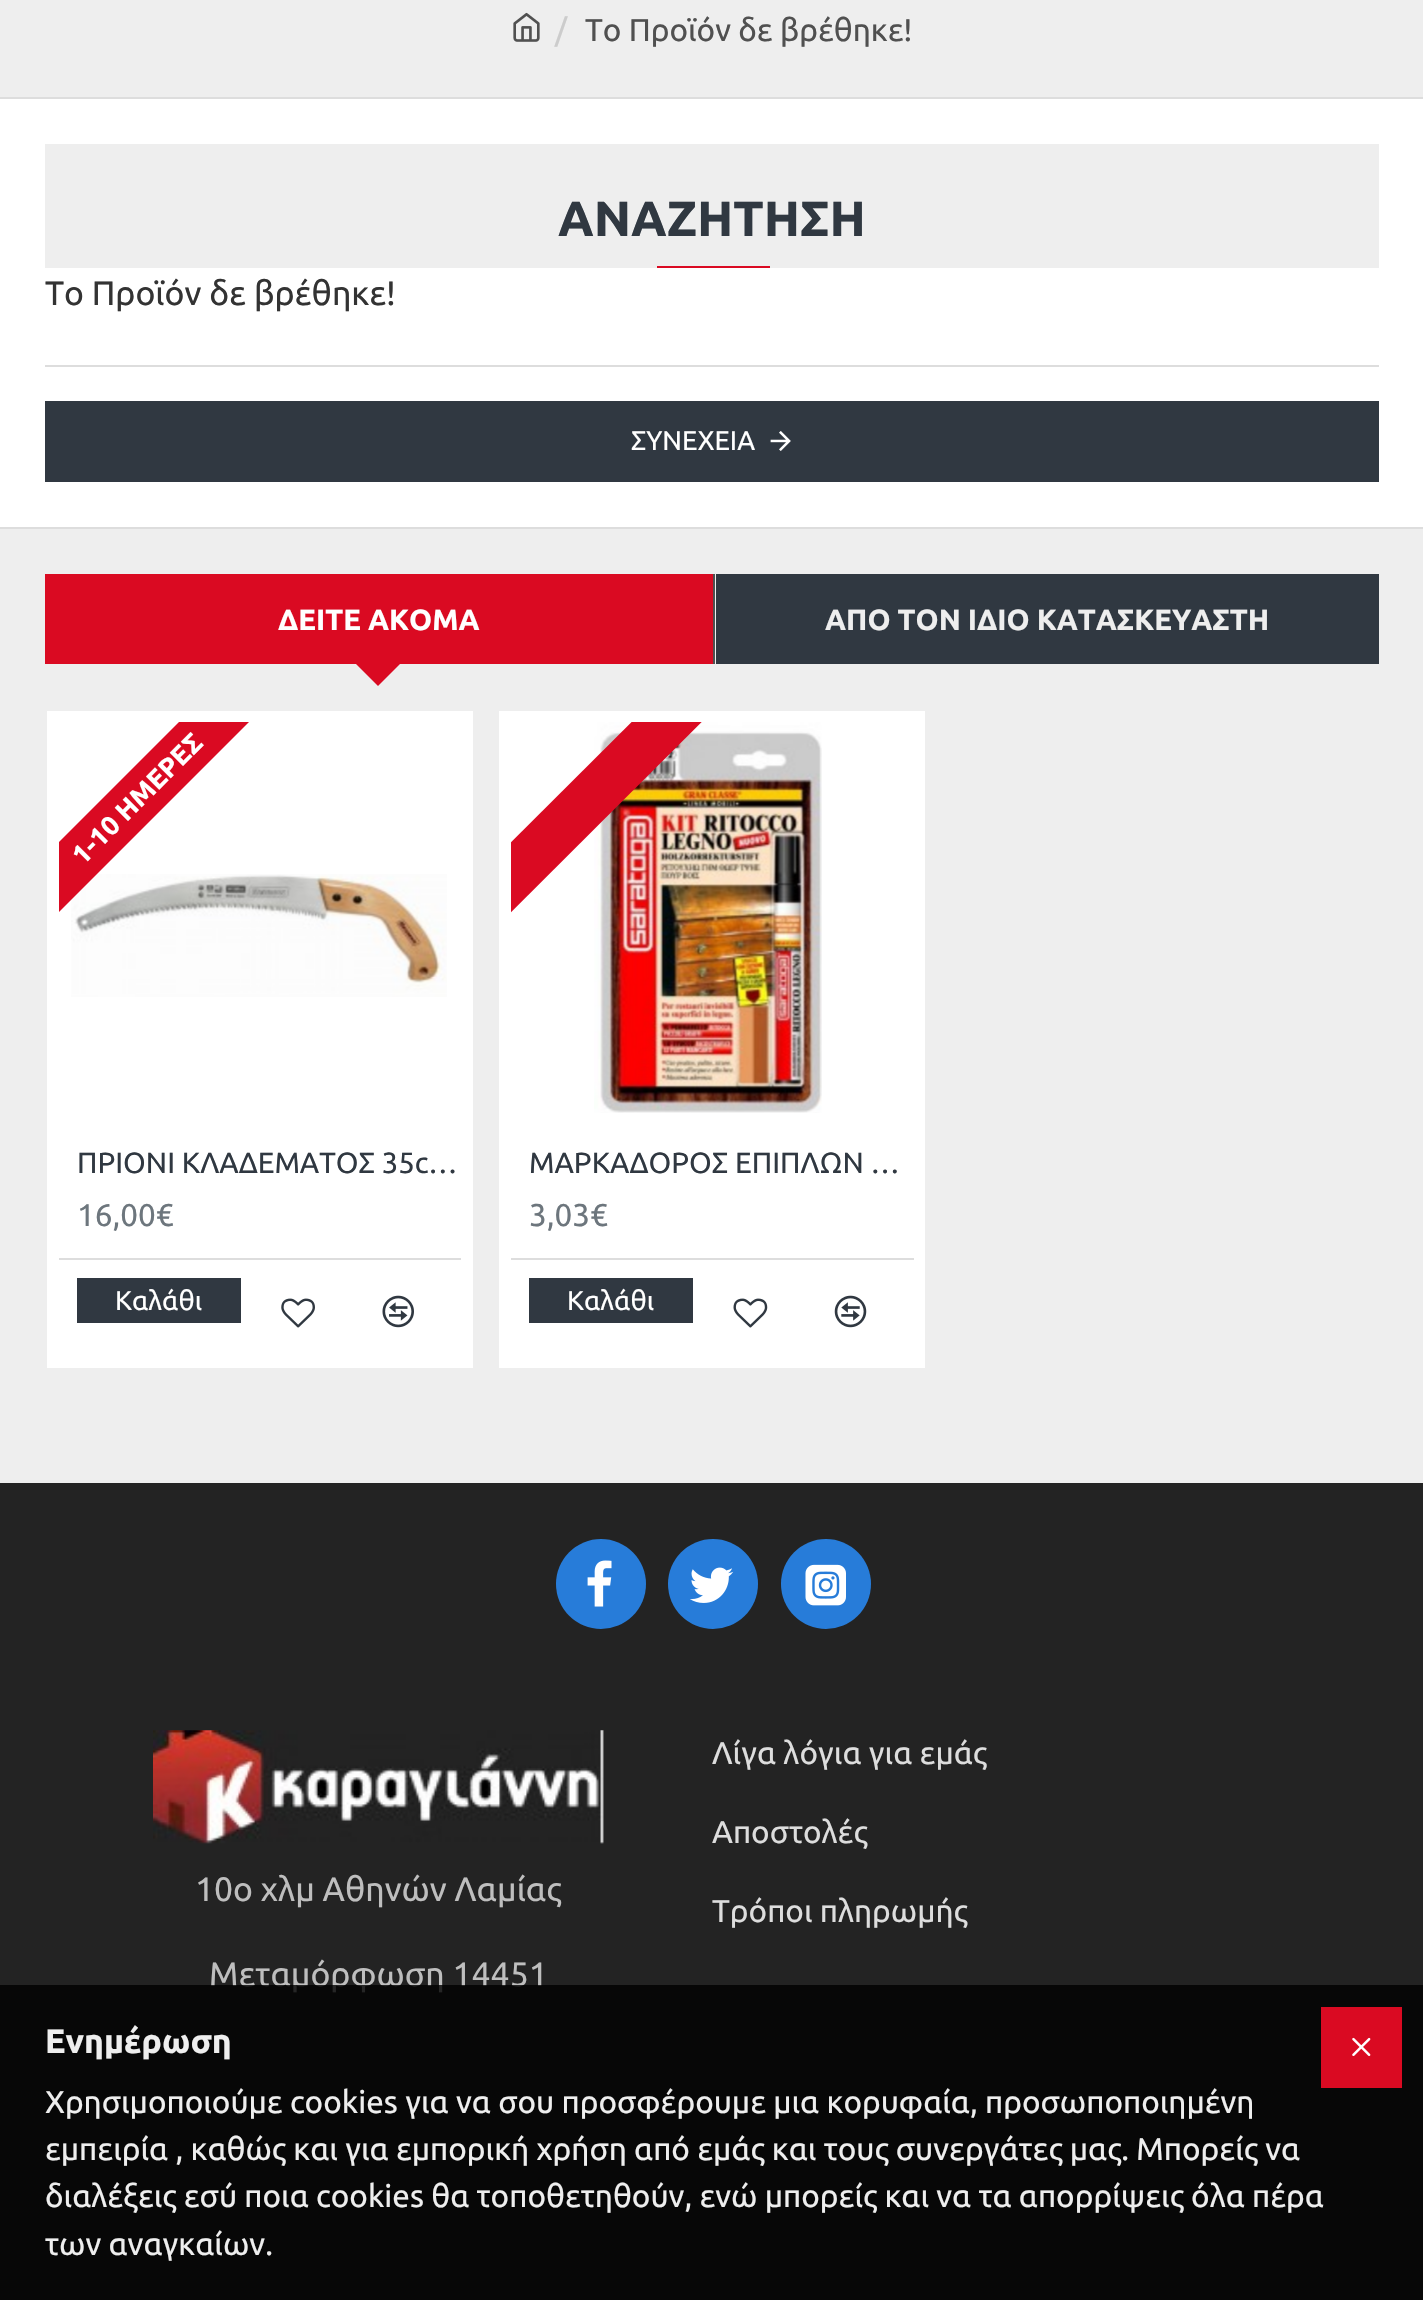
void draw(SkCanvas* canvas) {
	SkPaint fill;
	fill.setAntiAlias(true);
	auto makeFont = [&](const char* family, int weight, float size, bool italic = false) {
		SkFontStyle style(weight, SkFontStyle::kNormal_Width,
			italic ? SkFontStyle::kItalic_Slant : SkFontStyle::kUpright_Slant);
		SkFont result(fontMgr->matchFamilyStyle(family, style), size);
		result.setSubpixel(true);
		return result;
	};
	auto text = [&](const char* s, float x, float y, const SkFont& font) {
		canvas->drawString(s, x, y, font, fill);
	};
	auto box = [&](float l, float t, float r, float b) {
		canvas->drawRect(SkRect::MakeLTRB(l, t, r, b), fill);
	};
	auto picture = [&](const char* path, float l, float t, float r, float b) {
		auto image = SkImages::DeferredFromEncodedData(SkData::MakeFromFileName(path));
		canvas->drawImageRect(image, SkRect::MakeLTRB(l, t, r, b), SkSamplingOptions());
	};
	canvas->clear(0xFFFFFFFF);
	fill.setColor(0xFFEEEEEE);
	box(0, 0, 1423, 97);
	fill.setColor(0xFFDDDDDD);
	box(0, 97, 1423, 99);
	picture("image0.png", 513, 12, 540, 42);
	fill.setColor(0xFFEEEEEE);
	box(45, 144, 1379, 268);
	fill.setColor(0xFFDA0A22);
	box(657, 266, 770, 268);
	fill.setColor(0xFFDDDDDD);
	box(45, 365, 1379, 367);
	fill.setColor(0xFF303841);
	box(45, 401, 1379, 482);
	picture("image1.png", 770, 431, 791, 451);
	fill.setColor(0xFFEEEEEE);
	box(0, 529, 1423, 1483);
	fill.setColor(0xFFDDDDDD);
	box(0, 527, 1423, 529);
	fill.setColor(0xFFDA0A22);
	box(45, 574, 713, 664);
	canvas->drawPath(SkPathBuilder().moveTo(356, 664).lineTo(400, 664).lineTo(378, 686).close().detach(), fill);
	fill.setColor(0xFF505050);
	box(713, 574, 715, 664);
	fill.setColor(0xFF303841);
	box(716, 574, 1379, 664);
	fill.setColor(0xFFFFFFFF);
	box(47, 711, 473, 1368);
	picture("image2.png", 71, 874, 447, 997);
	canvas->save();
	canvas->clipRect(SkRect::MakeLTRB(59, 722, 461, 1125));
	fill.setColor(0xFFDA0A22);
	canvas->drawPath(SkPathBuilder().moveTo(-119, 1020).lineTo(358, 543).lineTo(393, 578).lineTo(-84, 1055).close().detach(), fill);
	canvas->restore();
	fill.setColor(0xFFDDDDDD);
	box(59, 1258, 461, 1260);
	fill.setColor(0xFF303841);
	box(77, 1278, 241, 1323);
	picture("image3.png", 281, 1298, 315, 1328);
	picture("image4.png", 382, 1295, 414, 1328);
	fill.setColor(0xFFFFFFFF);
	box(499, 711, 925, 1368);
	picture("image5.png", 594, 722, 822, 1113);
	canvas->save();
	canvas->clipRect(SkRect::MakeLTRB(511, 722, 914, 1125));
	fill.setColor(0xFFDA0A22);
	canvas->drawPath(SkPathBuilder().moveTo(333, 1020).lineTo(811, 543).lineTo(846, 578).lineTo(368, 1055).close().detach(), fill);
	canvas->restore();
	fill.setColor(0xFFDDDDDD);
	box(511, 1258, 914, 1260);
	fill.setColor(0xFF303841);
	box(529, 1278, 693, 1323);
	picture("image6.png", 733, 1298, 768, 1328);
	picture("image7.png", 834, 1295, 867, 1328);
	fill.setColor(0xFF232323);
	box(0, 1483, 1423, 2300);
	fill.setColor(0xFF277CD9);
	canvas->drawCircle(601, 1584, 45, fill);
	picture("image8.png", 587, 1560, 612, 1607);
	canvas->drawCircle(713, 1584, 45, fill);
	picture("image9.png", 690, 1567, 734, 1603);
	canvas->drawCircle(826, 1584, 45, fill);
	picture("image10.png", 805, 1564, 846, 1606);
	picture("image11.png", 153, 1730, 604, 1844);
	auto font1 = makeFont("Ubuntu", 400, 31.5f);
	fill.setColor(0xFFCCCCCC);
	text("/", 555, 41, font1);
	fill.setColor(0xFF505050);
	text("Το Προϊόν δε βρέθηκε!", 585, 41, font1);
	auto font2 = makeFont("Ubuntu", 700, 49.5f);
	fill.setColor(0xFF303841);
	text("ΑΝΑΖΗΤΗΣΗ", 558, 236, font2);
	auto font3 = makeFont("Ubuntu", 400, 33.75f);
	fill.setColor(0xFF333333);
	text("Το Προϊόν δε βρέθηκε!", 45, 305, font3);
	auto font4 = makeFont("Ubuntu", 400, 27);
	fill.setColor(0xFFFFFFFF);
	text("ΣΥΝΕΧΕΙΑ", 631, 450, font4);
	auto font5 = makeFont("Ubuntu", 700, 29.25f);
	text("ΔΕΙΤΕ ΑΚΟΜΑ", 278, 630, font5);
	fill.setColor(0xFFEEEEEE);
	text("ΑΠΟ ΤΟΝ ΙΔΙΟ ΚΑΤΑΣΚΕΥΑΣΤΗ", 825, 630, font5);
	auto font6 = makeFont("Ubuntu", 700, 27);
	fill.setColor(0xFFFFFFFF);
	canvas->save();
	canvas->rotate(-45, 83, 866);
	text("1-10 ΗΜΕΡΕΣ", 83, 866, font6);
	canvas->restore();
	auto font7 = makeFont("Ubuntu", 400, 29.25f);
	fill.setColor(0xFF303841);
	text("ΠΡΙΟΝΙ ΚΛΑΔΕΜΑΤΟΣ 35c…", 77, 1173, font7);
	fill.setColor(0xFF6D767D);
	text("16,00€", 77, 1226, font1);
	fill.setColor(0xFFFFFFFF);
	text("Καλάθι", 115, 1310, font4);
	fill.setColor(0xFF303841);
	text("ΜΑΡΚΑΔΟΡΟΣ ΕΠΙΠΛΩΝ …", 529, 1173, font7);
	fill.setColor(0xFF6D767D);
	text("3,03€", 529, 1226, font1);
	fill.setColor(0xFFFFFFFF);
	text("Καλάθι", 567, 1310, font4);
	fill.setColor(0xFFBEBEBE);
	text("10ο χλμ Αθηνών Λαμίας", 195, 1901, font3);
	text("Μεταμόρφωση 14451", 209, 1986, font3);
	fill.setColor(0xFFDDDDDD);
	text("Λίγα λόγια για εμάς", 712, 1764, font1);
	text("Αποστολές", 712, 1843, font1);
	text("Τρόποι πληρωμής", 712, 1922, font1);
	fill.setColor(0xCC000000);
	box(0, 1985, 1423, 2300);
	auto font8 = makeFont("Ubuntu", 700, 33.75f);
	fill.setColor(0xFFEEEEEE);
	text("Ενημέρωση", 45, 2053, font8);
	text("Χρησιμοποιούμε cookies για να σου προσφέρουμε μια κορυφαία, προσωποποιημένη", 45, 2113, font1);
	text("εμπειρία , καθώς και για εμπορική χρήση από εμάς και τους συνεργάτες μας. Μπορείς να", 45, 2160, font1);
	text("διαλέξεις εσύ ποια cookies θα τοποθετηθούν, ενώ μπορείς και να τα απορρίψεις όλα πέρα", 45, 2207, font1);
	text("των αναγκαίων.", 45, 2255, font1);
	fill.setColor(0xFFDA0A22);
	box(1321, 2007, 1402, 2088);
	picture("image12.png", 1352, 2037, 1371, 2056);
}
